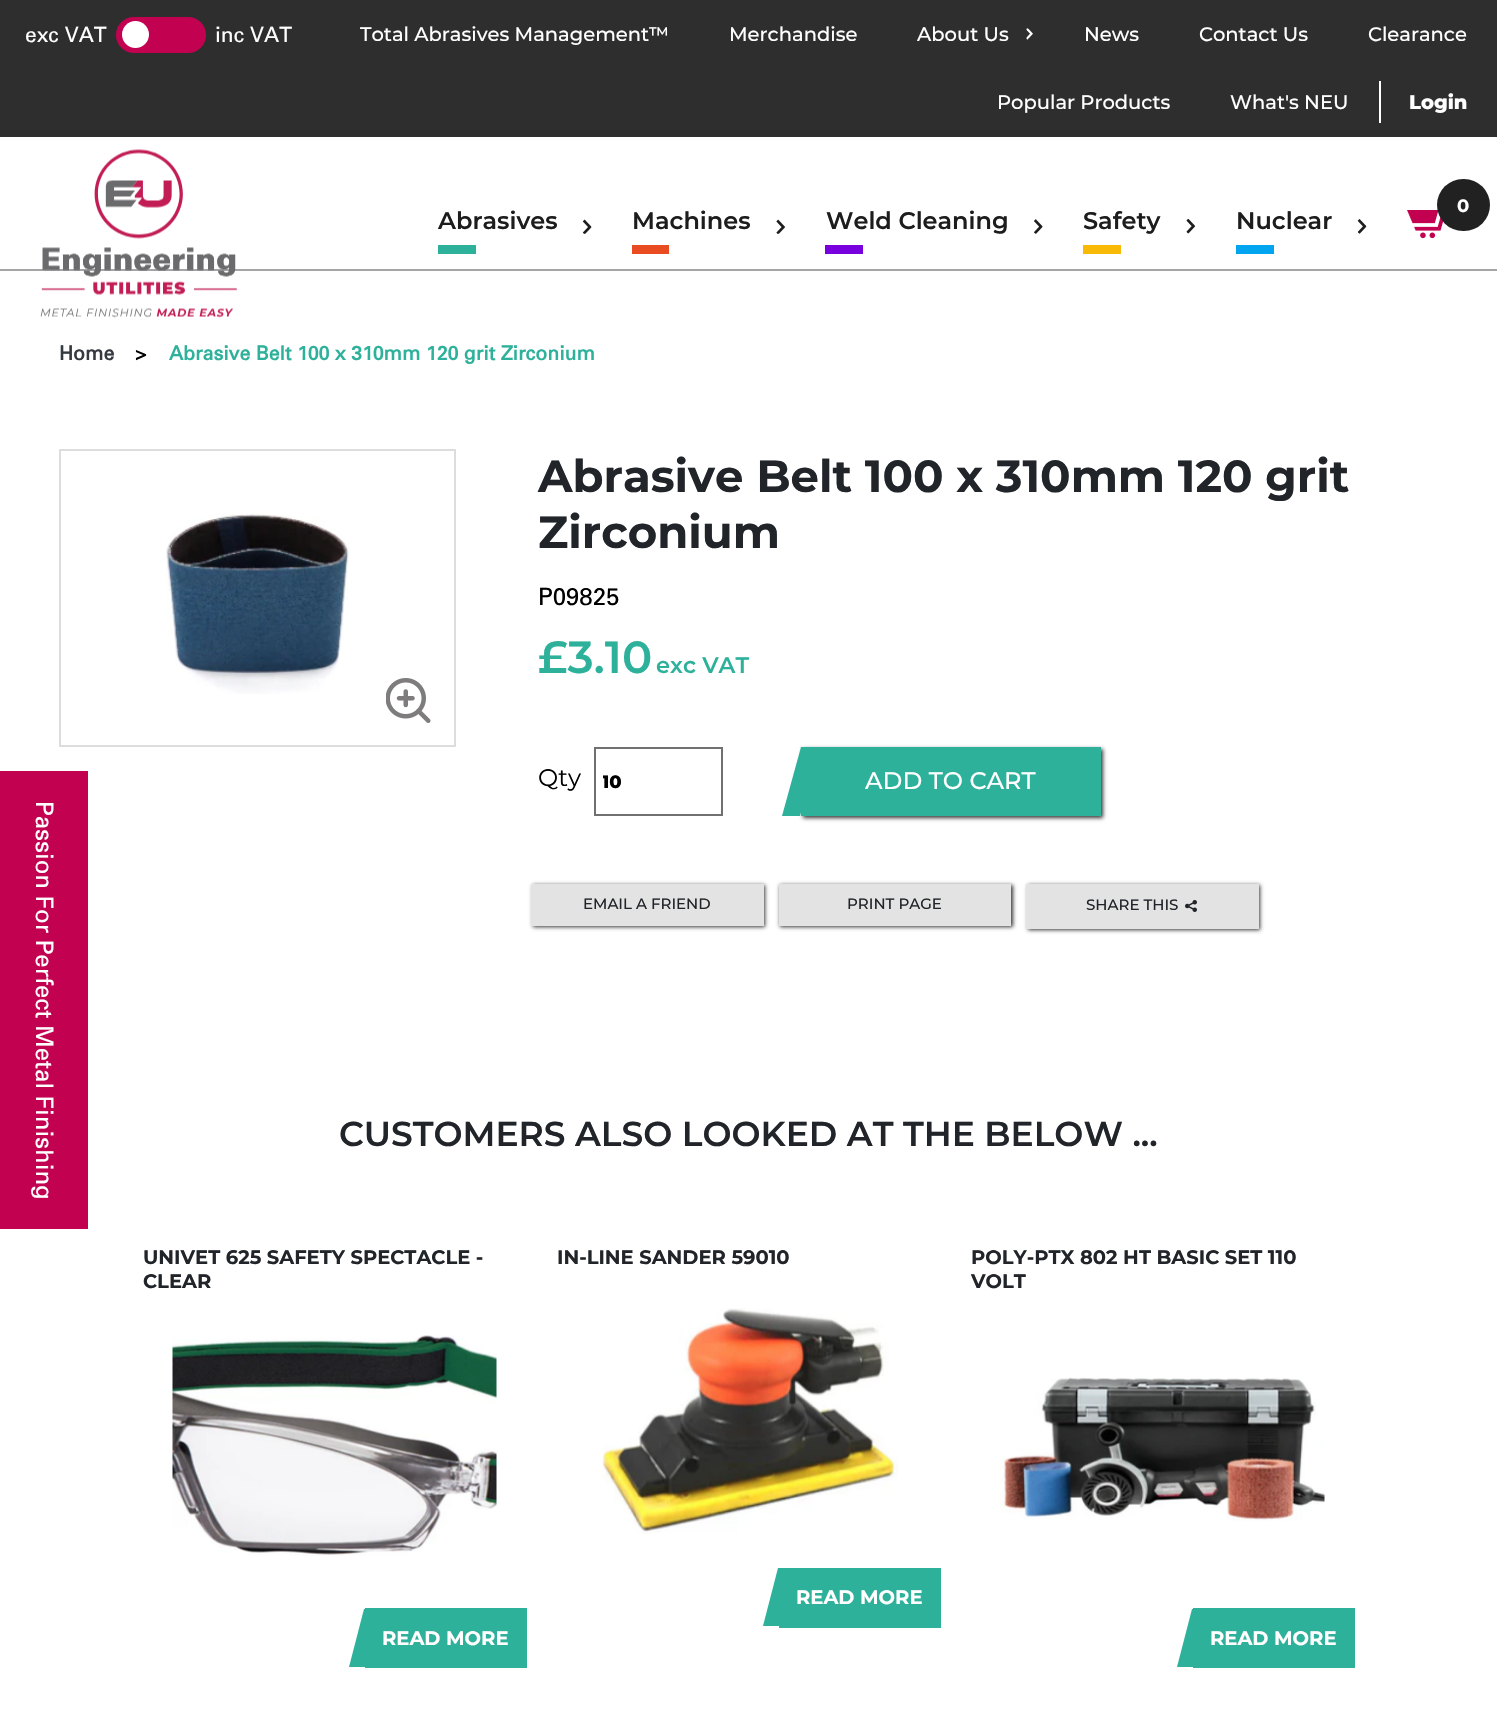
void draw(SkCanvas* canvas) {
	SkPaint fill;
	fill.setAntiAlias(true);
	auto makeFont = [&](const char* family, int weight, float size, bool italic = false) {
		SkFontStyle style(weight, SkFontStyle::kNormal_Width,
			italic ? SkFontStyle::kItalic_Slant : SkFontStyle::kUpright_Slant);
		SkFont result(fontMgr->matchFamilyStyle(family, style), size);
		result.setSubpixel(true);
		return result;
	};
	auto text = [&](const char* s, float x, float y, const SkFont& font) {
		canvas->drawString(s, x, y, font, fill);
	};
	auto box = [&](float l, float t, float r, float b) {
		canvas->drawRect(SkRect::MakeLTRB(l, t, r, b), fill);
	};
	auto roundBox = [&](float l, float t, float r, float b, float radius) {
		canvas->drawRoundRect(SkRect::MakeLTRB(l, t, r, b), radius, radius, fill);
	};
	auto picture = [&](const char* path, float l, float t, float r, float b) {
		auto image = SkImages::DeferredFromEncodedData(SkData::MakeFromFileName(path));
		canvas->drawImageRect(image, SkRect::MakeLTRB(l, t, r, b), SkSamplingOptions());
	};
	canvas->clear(0xFFFFFFFF);
	fill.setColor(0xFFA5A5A5);
	box(0, 269, 1497, 271);
	fill.setColor(0xFF2E2E2E);
	box(0, 0, 1497, 137);
	fill.setColor(0xFFC30151);
	roundBox(116, 17, 206, 53, 18);
	fill.setColor(0xFFFFFFFF);
	canvas->drawCircle(135.5f, 34.5f, 13.5f, fill);
	picture("image0.png", 1026, 28, 1033, 40);
	box(1379, 81, 1381, 123);
	picture("image1.png", 40, 149, 237, 318);
	picture("image2.png", 1407, 210, 1444, 239);
	fill.setColor(0xFF212121);
	roundBox(1437, 179, 1490, 231, 26);
	picture("image3.png", 582, 219, 592, 234);
	fill.setColor(0xFF2EB19B);
	box(438, 245, 476, 254);
	picture("image4.png", 776, 219, 785, 234);
	fill.setColor(0xFFE84C20);
	box(632, 245, 669, 254);
	picture("image5.png", 1034, 219, 1043, 234);
	fill.setColor(0xFF7800DE);
	box(825, 245, 863, 254);
	picture("image6.png", 1186, 219, 1196, 234);
	fill.setColor(0xFFF9BA07);
	box(1083, 245, 1121, 254);
	picture("image7.png", 1357, 219, 1367, 234);
	fill.setColor(0xFF00A4EF);
	box(1236, 245, 1274, 254);
	fill.setColor(0xFFC30151);
	box(0, 771, 88, 1229);
	fill.setStyle(SkPaint::kStroke_Style);
	fill.setStrokeWidth(2);
	fill.setColor(0xFFDDDDDD);
	canvas->drawRect(SkRect::MakeLTRB(60, 450, 455, 746), fill);
	picture("image8.png", 166, 514, 349, 694);
	picture("image9.png", 386, 678, 431, 723);
	fill.setColor(0xFF707070);
	canvas->drawRect(SkRect::MakeLTRB(595, 748, 722, 815), fill);
	fill.setStyle(SkPaint::kFill_Style);
	fill.setColor(0xC9000000);
	fill.setMaskFilter(SkMaskFilter::MakeBlur(kNormal_SkBlurStyle, 2));
	canvas->drawRect(SkRect::MakeLTRB(803, 749, 1103, 818), fill);
	fill.setMaskFilter(nullptr);
	fill.setColor(0xFF2EB19B);
	box(801, 747, 1101, 816);
	canvas->drawPath(SkPathBuilder().moveTo(801, 747).lineTo(819, 747).lineTo(800, 816).lineTo(782, 816).close().detach(), fill);
	fill.setColor(0xC9000000);
	fill.setMaskFilter(SkMaskFilter::MakeBlur(kNormal_SkBlurStyle, 2));
	canvas->drawRect(SkRect::MakeLTRB(533, 885, 765, 927), fill);
	fill.setMaskFilter(nullptr);
	fill.setColor(0xFFE3E3E3);
	box(531, 884, 764, 926);
	fill.setColor(0xC9000000);
	fill.setMaskFilter(SkMaskFilter::MakeBlur(kNormal_SkBlurStyle, 2));
	canvas->drawRect(SkRect::MakeLTRB(780, 885, 1013, 927), fill);
	fill.setMaskFilter(nullptr);
	fill.setColor(0xFFE3E3E3);
	box(779, 884, 1011, 926);
	fill.setColor(0xC9000000);
	fill.setMaskFilter(SkMaskFilter::MakeBlur(kNormal_SkBlurStyle, 2));
	canvas->drawRect(SkRect::MakeLTRB(1028, 885, 1260, 930), fill);
	fill.setMaskFilter(nullptr);
	fill.setColor(0xFFE3E3E3);
	box(1026, 884, 1259, 929);
	picture("image10.png", 1185, 900, 1197, 912);
	picture("image11.png", 172, 1335, 497, 1556);
	fill.setColor(0xFF2EB19B);
	box(365, 1608, 527, 1668);
	picture("image12.png", 602, 1308, 898, 1534);
	box(779, 1568, 941, 1628);
	picture("image13.png", 1000, 1377, 1325, 1521);
	box(1193, 1608, 1355, 1668);
	auto font1 = makeFont("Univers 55", 500, 21);
	fill.setColor(0xFFFFFFFF);
	text("exc VAT", 25, 42, font1);
	text("inc VAT", 215, 42, font1);
	auto font2 = makeFont("Montserrat", 500, 19.5f);
	text("Total Abrasives Management™", 360, 41, font2);
	text("Merchandise", 729, 41, font2);
	text("About Us", 917, 41, font2);
	text("News", 1084, 41, font2);
	text("Contact Us", 1199, 41, font2);
	text("Clearance", 1368, 41, font2);
	text("Popular Products", 997, 109, font2);
	text("What's NEU", 1230, 109, font2);
	auto font3 = makeFont("Montserrat", 800, 19.5f);
	text("Login", 1409, 109, font3);
	auto font4 = makeFont("Montserrat", 700, 18);
	text("0", 1457, 212, font4);
	auto font5 = makeFont("Montserrat", 600, 24);
	fill.setColor(0xFF1D1D1D);
	text("Abrasives", 438, 229, font5);
	text("Machines", 632, 229, font5);
	text("Weld Cleaning", 826, 229, font5);
	text("Safety", 1083, 229, font5);
	text("Nuclear", 1236, 229, font5);
	auto font6 = makeFont("Univers 55", 500, 24);
	fill.setColor(0xFFFFFFFF);
	canvas->save();
	canvas->rotate(90, 36, 801);
	text("Passion For Perfect Metal Finishing", 36, 801, font6);
	canvas->restore();
	auto font7 = makeFont("Univers 55", 700, 19.5f);
	fill.setColor(0xFF343A40);
	text("Home", 59, 360, font7);
	fill.setColor(0xFF000000);
	text(">", 135, 360, font7);
	fill.setColor(0xFF2EB19B);
	text("Abrasive Belt 100 x 310mm 120 grit Zirconium", 169, 360, font7);
	auto font8 = makeFont("Montserrat", 700, 45);
	fill.setColor(0xFF212529);
	text("Abrasive Belt 100 x 310mm 120 grit", 538, 492, font8);
	text("Zirconium", 538, 548, font8);
	fill.setColor(0xFF000000);
	text("P09825", 538, 605, font6);
	auto font9 = makeFont("Montserrat", 600, 45);
	fill.setColor(0xFF2EB19B);
	text("£3.10", 538, 673, font9);
	auto font10 = makeFont("Montserrat", 600, 22.5f);
	text("exc VAT", 656, 673, font10);
	auto font11 = makeFont("Montserrat", 400, 24);
	fill.setColor(0xFF000000);
	text("Qty", 538, 786, font11);
	canvas->save();
	canvas->clipRect(SkRect::MakeLTRB(603, 770, 692, 792));
	auto font12 = makeFont("Montserrat", 800, 18);
	text("10", 602, 788, font12);
	canvas->restore();
	auto font13 = makeFont("Montserrat", 500, 24);
	fill.setColor(0xFFFFFFFF);
	text("ADD TO CART", 865, 789, font13);
	auto font14 = makeFont("Montserrat", 500, 15);
	fill.setColor(0xFF212529);
	text("EMAIL A FRIEND", 583, 909, font14);
	text("PRINT PAGE", 847, 909, font14);
	text("SHARE THIS", 1086, 910, font14);
	auto font15 = makeFont("Montserrat", 600, 34.5f);
	text("CUSTOMERS ALSO LOOKED AT THE BELOW ...", 339, 1146, font15);
	auto font16 = makeFont("Montserrat", 700, 19.5f);
	text("UNIVET 625 SAFETY SPECTACLE -", 143, 1264, font16);
	text("CLEAR", 143, 1288, font16);
	fill.setColor(0xFFFFFFFF);
	text("READ MORE", 382, 1645, font16);
	fill.setColor(0xFF2EB19B);
	canvas->drawPath(SkPathBuilder().moveTo(364, 1609).lineTo(385, 1609).lineTo(370, 1667).lineTo(349, 1667).close().detach(), fill);
	fill.setColor(0xFF212529);
	text("IN-LINE SANDER 59010", 557, 1264, font16);
	fill.setColor(0xFFFFFFFF);
	text("READ MORE", 796, 1604, font16);
	fill.setColor(0xFF2EB19B);
	canvas->drawPath(SkPathBuilder().moveTo(778, 1568).lineTo(799, 1568).lineTo(784, 1626).lineTo(763, 1626).close().detach(), fill);
	fill.setColor(0xFF212529);
	text("POLY-PTX 802 HT BASIC SET 110", 971, 1264, font16);
	text("VOLT", 971, 1288, font16);
	fill.setColor(0xFFFFFFFF);
	text("READ MORE", 1210, 1645, font16);
	fill.setColor(0xFF2EB19B);
	canvas->drawPath(SkPathBuilder().moveTo(1192, 1609).lineTo(1213, 1609).lineTo(1198, 1667).lineTo(1177, 1667).close().detach(), fill);
}
